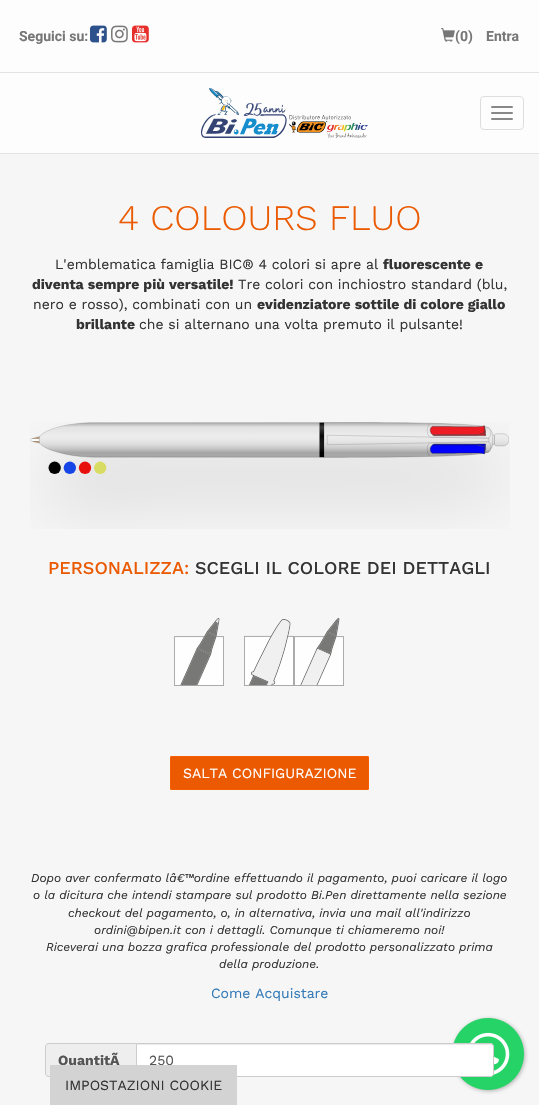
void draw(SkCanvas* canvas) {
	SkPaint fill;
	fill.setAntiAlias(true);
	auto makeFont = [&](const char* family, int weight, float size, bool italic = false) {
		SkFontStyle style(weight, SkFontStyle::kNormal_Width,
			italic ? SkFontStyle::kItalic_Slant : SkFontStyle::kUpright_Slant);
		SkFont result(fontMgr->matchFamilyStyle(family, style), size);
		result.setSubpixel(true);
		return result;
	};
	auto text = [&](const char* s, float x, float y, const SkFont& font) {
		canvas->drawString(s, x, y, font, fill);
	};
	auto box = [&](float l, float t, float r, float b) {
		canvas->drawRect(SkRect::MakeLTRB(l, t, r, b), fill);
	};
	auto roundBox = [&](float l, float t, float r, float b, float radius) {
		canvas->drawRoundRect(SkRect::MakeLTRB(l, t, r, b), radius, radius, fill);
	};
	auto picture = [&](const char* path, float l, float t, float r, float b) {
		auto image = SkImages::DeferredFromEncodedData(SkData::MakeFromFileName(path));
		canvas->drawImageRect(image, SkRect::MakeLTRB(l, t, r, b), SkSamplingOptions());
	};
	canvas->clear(0xFFFDFDFD);
	picture("image0.png", 90, 25, 107, 43);
	picture("image1.png", 111, 25, 128, 43);
	picture("image2.png", 132, 25, 149, 43);
	picture("image3.png", 441, 28, 455, 42);
	fill.setColor(0xFFE3E3E3);
	box(0, 72, 539, 73);
	box(0, 153, 539, 154);
	picture("image4.png", 201, 88, 368, 138);
	fill.setStyle(SkPaint::kStroke_Style);
	fill.setStrokeWidth(1);
	fill.setColor(0xFFDDDDDD);
	canvas->drawRoundRect(SkRect::MakeLTRB(480.5f, 96.5f, 523.5f, 129.5f), 3.5f, 3.5f, fill);
	fill.setStyle(SkPaint::kFill_Style);
	fill.setColor(0xFF888888);
	roundBox(491, 106, 513, 108, 1);
	roundBox(491, 112, 513, 114, 1);
	roundBox(491, 118, 513, 120, 1);
	fill.setColor(0xFFF6F6F6);
	box(0, 154, 539, 1105);
	picture("image5.png", 30, 422, 510, 529);
	picture("image6.png", 174, 618, 224, 686);
	picture("image7.png", 244, 619, 294, 686);
	picture("image8.png", 294, 618, 344, 686);
	fill.setColor(0xFFEB5A01);
	canvas->drawRoundRect(SkRect::MakeLTRB(170.5f, 756.5f, 368.5f, 789.5f), 0.5f, 0.5f, fill);
	fill.setStyle(SkPaint::kStroke_Style);
	fill.setColor(0xFFF65E01);
	canvas->drawRoundRect(SkRect::MakeLTRB(170.5f, 756.5f, 368.5f, 789.5f), 0.5f, 0.5f, fill);
	fill.setStyle(SkPaint::kFill_Style);
	fill.setColor(0xFFEEEEEE);
	canvas->drawPath(SkPathBuilder().moveTo(49, 1043).lineTo(136, 1043).lineTo(136, 1077).lineTo(49, 1077).cubicTo(47, 1077, 45, 1075, 45, 1073).lineTo(45, 1047).cubicTo(45, 1045, 47, 1043, 49, 1043).close().detach(), fill);
	fill.setColor(0xFFCCCCCC);
	canvas->drawPath(SkPathBuilder(SkPathFillType::kEvenOdd).moveTo(49, 1043).lineTo(136, 1043).lineTo(136, 1077).lineTo(49, 1077).cubicTo(47, 1077, 45, 1075, 45, 1073).lineTo(45, 1047).cubicTo(45, 1045, 47, 1043, 49, 1043).close().moveTo(49, 1044).lineTo(136, 1044).lineTo(136, 1076).lineTo(49, 1076).cubicTo(47, 1076, 46, 1075, 46, 1073).lineTo(46, 1047).cubicTo(46, 1045, 47, 1044, 49, 1044).close().detach(), fill);
	fill.setColor(0x663C3C3C);
	fill.setMaskFilter(SkMaskFilter::MakeBlur(kNormal_SkBlurStyle, 2));
	canvas->drawRoundRect(SkRect::MakeLTRB(453, 1019, 525, 1091), 36, 36, fill);
	fill.setMaskFilter(nullptr);
	picture("image9.png", 453, 1018, 524, 1090);
	fill.setColor(0xFFFFFFFF);
	canvas->drawPath(SkPathBuilder().moveTo(136, 1043).lineTo(490, 1043).cubicTo(492, 1043, 494, 1045, 494, 1047).lineTo(494, 1073).cubicTo(494, 1075, 492, 1077, 490, 1077).lineTo(136, 1077).close().detach(), fill);
	fill.setColor(0xFFECECEC);
	canvas->drawPath(SkPathBuilder().moveTo(137, 1045).lineTo(490, 1045).cubicTo(492, 1045, 493, 1046, 493, 1048).lineTo(493, 1047).cubicTo(493, 1045, 492, 1044, 490, 1044).lineTo(137, 1044).close().detach(), fill);
	fill.setStyle(SkPaint::kStroke_Style);
	fill.setColor(0xFFCCCCCC);
	canvas->drawPath(SkPathBuilder().moveTo(136.5f, 1043.5f).lineTo(490, 1043.5f).cubicTo(492, 1043.5f, 493.5f, 1045, 493.5f, 1047).lineTo(493.5f, 1073).cubicTo(493.5f, 1075, 492, 1076.5f, 490, 1076.5f).lineTo(136.5f, 1076.5f).close().detach(), fill);
	auto font1 = makeFont("Roboto", 700, 14);
	fill.setStyle(SkPaint::kFill_Style);
	fill.setColor(0xFF777777);
	text("Seguici su:", 19, 41, font1);
	text("(0)", 455, 41, font1);
	text("Entra", 486, 41, font1);
	auto font2 = makeFont("Work Sans", 300, 36);
	fill.setColor(0xFFEB5A01);
	text("4 COLOURS FLUO", 118, 230, font2);
	auto font3 = makeFont("Work Sans", 400, 14);
	fill.setColor(0xFF333333);
	text("L'emblematica famiglia BIC® 4 colori si apre al", 55, 269, font3);
	auto font4 = makeFont("Work Sans", 700, 14);
	text("fluorescente e", 383, 269, font4);
	text("diventa sempre più versatile!", 32, 289, font4);
	text("Tre colori con inchiostro standard (blu,", 238, 289, font3);
	text("nero e rosso), combinati con un", 33, 309, font3);
	text("evidenziatore sottile di colore giallo", 257, 309, font4);
	text("brillante", 76, 329, font4);
	text("che si alternano una volta premuto il pulsante!", 139, 329, font3);
	auto font5 = makeFont("Work Sans", 500, 18);
	fill.setColor(0xFFEB5A01);
	text("PERSONALIZZA:", 48, 574, font5);
	fill.setColor(0xFF333333);
	text("SCEGLI IL COLORE DEI DETTAGLI", 195, 574, font5);
	fill.setColor(0xFFFFFFFF);
	text("SALTA CONFIGURAZIONE", 183, 778, font3);
	auto font6 = makeFont("Work Sans", 400, 12, true);
	fill.setColor(0xFF333333);
	text("Dopo aver confermato lâ€™ordine effettuando il pagamento, puoi caricare il logo", 31, 882, font6);
	text("o la dicitura che intendi stampare sul prodotto Bi.Pen direttamente nella sezione", 33, 899, font6);
	text("checkout del pagamento, o, in alternativa, invia una mail all'indirizzo", 68, 917, font6);
	text("ordini@bipen.it con i dettagli. Comunque ti chiameremo noi!", 94, 934, font6);
	text("Riceverai una bozza grafica professionale del prodotto personalizzato prima", 46, 951, font6);
	text("della produzione.", 219, 968, font6);
	fill.setColor(0xFF337AB7);
	text("Come Acquistare", 211, 998, font3);
	fill.setColor(0xFF555555);
	text("QuantitÃ", 58, 1065, font4);
	text("250", 149, 1065, font3);
	fill.setColor(0xFFD3D3D3);
	box(50, 1065, 237, 1105);
	fill.setColor(0xFF333333);
	text("IMPOSTAZIONI COOKIE", 65, 1090, font3);
}
